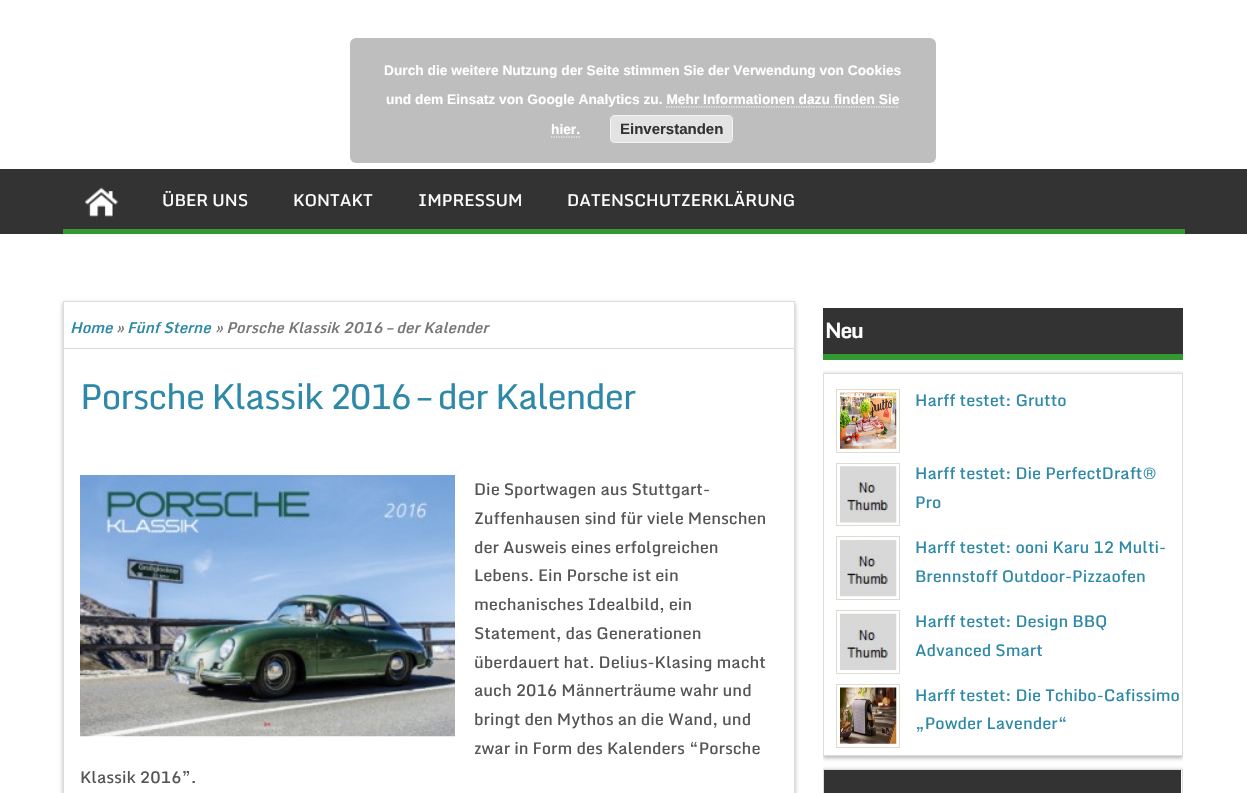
void draw(SkCanvas* canvas) {
	SkPaint fill;
	fill.setAntiAlias(true);
	auto makeFont = [&](const char* family, int weight, float size, bool italic = false) {
		SkFontStyle style(weight, SkFontStyle::kNormal_Width,
			italic ? SkFontStyle::kItalic_Slant : SkFontStyle::kUpright_Slant);
		SkFont result(fontMgr->matchFamilyStyle(family, style), size);
		result.setSubpixel(true);
		return result;
	};
	auto text = [&](const char* s, float x, float y, const SkFont& font) {
		canvas->drawString(s, x, y, font, fill);
	};
	auto spacedText = [&](const char* s, float x, float y, const SkFont& font, const SkPaint& ink, float letter, float word) {
		std::vector<SkGlyphID> glyphs(font.countText(s, strlen(s), SkTextEncoding::kUTF8));
		std::vector<float> xs(glyphs.size());
		font.textToGlyphs(s, strlen(s), SkTextEncoding::kUTF8, glyphs);
		font.getXPos(glyphs, xs, x);
		float extra = 0;
		for (size_t i = 0; i < glyphs.size(); i++) {
			xs[i] += extra;
			extra += letter + word * (glyphs[i] == font.unicharToGlyph(' '));
		}
		canvas->drawTextBlob(SkTextBlob::MakeFromPosHGlyphs(glyphs, xs, y, font), 0, 0, ink);
	};
	auto box = [&](float l, float t, float r, float b) {
		canvas->drawRect(SkRect::MakeLTRB(l, t, r, b), fill);
	};
	auto roundBox = [&](float l, float t, float r, float b, float radius) {
		canvas->drawRoundRect(SkRect::MakeLTRB(l, t, r, b), radius, radius, fill);
	};
	auto picture = [&](const char* path, float l, float t, float r, float b) {
		auto image = SkImages::DeferredFromEncodedData(SkData::MakeFromFileName(path));
		canvas->drawImageRect(image, SkRect::MakeLTRB(l, t, r, b), SkSamplingOptions());
	};
	canvas->clear(0xFFFFFFFF);
	fill.setColor(0xFFBEBEBE);
	roundBox(350, 38, 936, 163, 6);
	fill.setStyle(SkPaint::kStroke_Style);
	fill.setStrokeWidth(1.2f);
	fill.setColor(0xFFFFFFFF);
	fill.setPathEffect(SkDashPathEffect::Make({{1.25f, 1.25f}}, 0));
	canvas->drawPath(SkPathBuilder().moveTo(666, 107).lineTo(899, 107).detach(), fill);
	fill.setPathEffect(nullptr);
	fill.setPathEffect(SkDashPathEffect::Make({{1.25f, 1.25f}}, 0));
	canvas->drawPath(SkPathBuilder().moveTo(551, 137).lineTo(580, 137).detach(), fill);
	fill.setPathEffect(nullptr);
	fill.setStyle(SkPaint::kFill_Style);
	fill.setColor(0xFFE3E3E3);
	roundBox(609, 114, 734, 144, 6);
	fill.setStyle(SkPaint::kStroke_Style);
	fill.setStrokeWidth(1);
	fill.setColor(0xFFF6F6F6);
	canvas->drawRoundRect(SkRect::MakeLTRB(610.5f, 115.5f, 732.5f, 142.5f), 4.5f, 4.5f, fill);
	fill.setColor(0xFFBBBBBB);
	canvas->drawRoundRect(SkRect::MakeLTRB(609.5f, 114.5f, 733.5f, 143.5f), 5.5f, 5.5f, fill);
	fill.setStyle(SkPaint::kFill_Style);
	fill.setColor(0xFF333333);
	box(0, 169, 1247, 234);
	fill.setColor(0xFF339933);
	box(63, 229, 1185, 234);
	picture("image0.png", 85, 187, 118, 217);
	fill.setColor(0xFFB5B5B5);
	fill.setMaskFilter(SkMaskFilter::MakeBlur(kNormal_SkBlurStyle, 2));
	canvas->drawRect(SkRect::MakeLTRB(63, 303, 795, 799), fill);
	fill.setMaskFilter(nullptr);
	fill.setColor(0xFFFFFFFF);
	canvas->drawRect(SkRect::MakeLTRB(63.5f, 301.5f, 794.5f, 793.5f), fill);
	fill.setStyle(SkPaint::kStroke_Style);
	fill.setColor(0xFFDDDDDD);
	canvas->drawRect(SkRect::MakeLTRB(63.5f, 301.5f, 794.5f, 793.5f), fill);
	fill.setStyle(SkPaint::kFill_Style);
	fill.setColor(0xFFDBDBDB);
	box(64, 348, 794, 349);
	picture("image1.png", 80, 475, 455, 737);
	fill.setColor(0xFF333333);
	box(823, 308, 1183, 354);
	fill.setColor(0xFF339933);
	box(823, 354, 1183, 360);
	canvas->save();
	canvas->clipRect(SkRect::MakeLTRB(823, 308, 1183, 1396));
	fill.setColor(0xFFB5B5B5);
	fill.setMaskFilter(SkMaskFilter::MakeBlur(kNormal_SkBlurStyle, 2));
	canvas->drawRect(SkRect::MakeLTRB(823, 374, 1183, 758), fill);
	fill.setMaskFilter(nullptr);
	canvas->restore();
	fill.setColor(0xFFFFFFFF);
	canvas->drawRect(SkRect::MakeLTRB(823.5f, 373.5f, 1182.5f, 755.5f), fill);
	fill.setStyle(SkPaint::kStroke_Style);
	fill.setColor(0xFFDDDDDD);
	canvas->drawRect(SkRect::MakeLTRB(823.5f, 373.5f, 1182.5f, 755.5f), fill);
	fill.setColor(0xFFDEDBD1);
	canvas->drawRect(SkRect::MakeLTRB(836.5f, 389.5f, 899.5f, 452.5f), fill);
	picture("image2.png", 840, 392, 897, 449);
	canvas->drawRect(SkRect::MakeLTRB(836.5f, 463.5f, 899.5f, 525.5f), fill);
	picture("image3.png", 840, 466, 897, 523);
	canvas->drawRect(SkRect::MakeLTRB(836.5f, 536.5f, 899.5f, 599.5f), fill);
	picture("image4.png", 840, 540, 897, 597);
	canvas->drawRect(SkRect::MakeLTRB(836.5f, 610.5f, 899.5f, 673.5f), fill);
	picture("image5.png", 840, 613, 897, 670);
	canvas->drawRect(SkRect::MakeLTRB(836.5f, 684.5f, 899.5f, 747.5f), fill);
	picture("image6.png", 840, 687, 897, 744);
	canvas->save();
	canvas->clipRect(SkRect::MakeLTRB(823, 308, 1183, 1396));
	fill.setStyle(SkPaint::kFill_Style);
	fill.setColor(0xFFB5B5B5);
	fill.setMaskFilter(SkMaskFilter::MakeBlur(kNormal_SkBlurStyle, 2));
	canvas->drawRect(SkRect::MakeLTRB(823, 770, 1183, 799), fill);
	fill.setMaskFilter(nullptr);
	canvas->restore();
	fill.setColor(0xFFFFFFFF);
	box(1181, 770, 1182, 793);
	fill.setStyle(SkPaint::kStroke_Style);
	fill.setColor(0xFFDDDDDD);
	canvas->drawRect(SkRect::MakeLTRB(823.5f, 769.5f, 1182.5f, 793.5f), fill);
	fill.setStyle(SkPaint::kFill_Style);
	fill.setColor(0xFF333333);
	box(824, 770, 1181, 793);
	auto font1 = makeFont("Liberation Sans", 700, 13.75f);
	fill.setColor(0xFFFFFFFF);
	text("Durch die weitere Nutzung der Seite stimmen Sie der Verwendung von Cookies", 384, 75, font1);
	text("und dem Einsatz von Google Analytics zu. Mehr Informationen dazu finden Sie", 386, 104, font1);
	text("hier.", 551, 134, font1);
	auto font2 = makeFont("Liberation Sans", 700, 15);
	fill.setColor(0xFF333333);
	text("Einverstanden", 620, 134, font2);
	auto font3 = makeFont("Monda", 500, 16.5f);
	fill.setColor(0xFFFFFFFF);
	text("ÜBER UNS", 162, 206, font3);
	text("KONTAKT", 293, 206, font3);
	text("IMPRESSUM", 418, 206, font3);
	text("DATENSCHUTZERKLÄRUNG", 567, 206, font3);
	auto font4 = makeFont("Monda", 600, 15, true);
	fill.setColor(0xFF2D89A7);
	text("Home", 70, 333, font4);
	fill.setColor(0xFF777777);
	text("»", 116, 333, font4);
	fill.setColor(0xFF2D89A7);
	text("Fünf Sterne", 127, 333, font4);
	fill.setColor(0xFF777777);
	text("» Porsche Klassik 2016 – der Kalender", 215, 333, font4);
	auto font5 = makeFont("Monda", 400, 35);
	fill.setColor(0xFF2D89A7);
	spacedText("Porsche Klassik 2016 – der Kalender", 80, 409, font5, fill, -1.25f, 0);
	auto font6 = makeFont("Monda", 500, 16.25f);
	fill.setColor(0xFF555555);
	text("Die Sportwagen aus Stuttgart-", 474, 495, font6);
	text("Zuffenhausen sind für viele Menschen", 474, 524, font6);
	text("der Ausweis eines erfolgreichen", 474, 553, font6);
	text("Lebens. Ein Porsche ist ein", 474, 581, font6);
	text("mechanisches Idealbild, ein", 474, 610, font6);
	text("Statement, das Generationen", 474, 639, font6);
	text("überdauert hat. Delius-Klasing macht", 474, 668, font6);
	text("auch 2016 Männerträume wahr und", 474, 696, font6);
	text("bringt den Mythos an die Wand, und", 474, 725, font6);
	text("zwar in Form des Kalenders “Porsche", 474, 754, font6);
	text("Klassik 2016”.", 80, 783, font6);
	auto font7 = makeFont("Monda", 700, 21);
	fill.setColor(0xFFFFFFFF);
	spacedText("Neu", 825, 338, font7, fill, -1.25f, 0);
	fill.setColor(0xFF2D89A7);
	text("Harff testet: Grutto", 915, 406, font6);
	text("Harff testet: Die PerfectDraft®", 915, 479, font6);
	text("Pro", 915, 508, font6);
	text("Harff testet: ooni Karu 12 Multi-", 915, 553, font6);
	text("Brennstoff Outdoor-Pizzaofen", 915, 582, font6);
	text("Harff testet: Design BBQ", 915, 627, font6);
	text("Advanced Smart", 915, 656, font6);
	text("Harff testet: Die Tchibo-Cafissimo", 915, 701, font6);
	text("„Powder Lavender“", 915, 729, font6);
}
